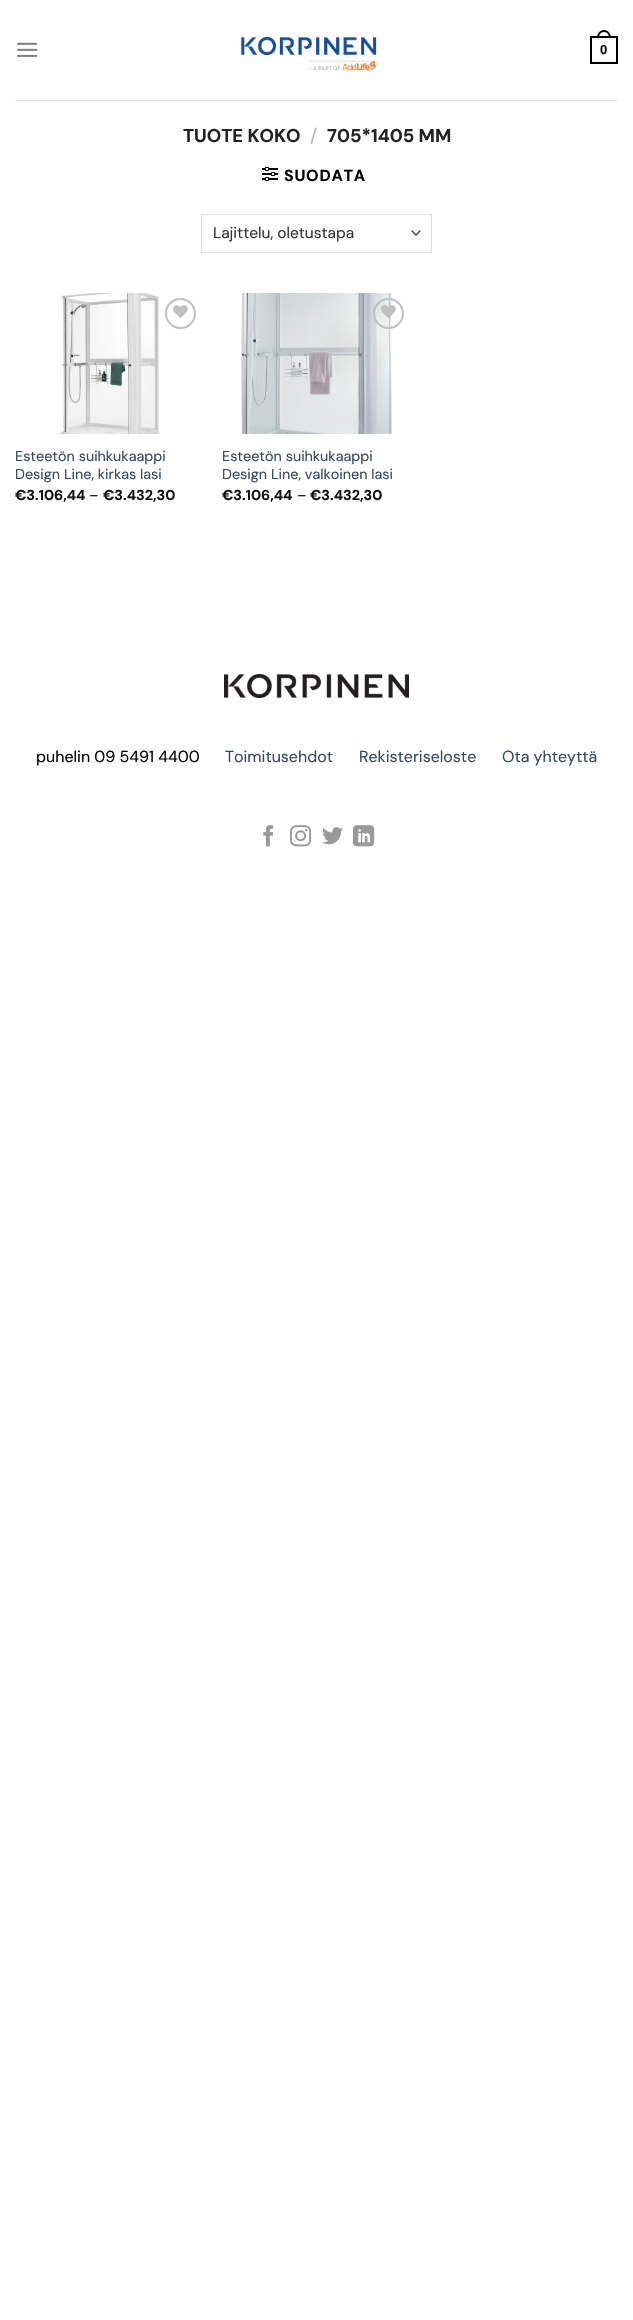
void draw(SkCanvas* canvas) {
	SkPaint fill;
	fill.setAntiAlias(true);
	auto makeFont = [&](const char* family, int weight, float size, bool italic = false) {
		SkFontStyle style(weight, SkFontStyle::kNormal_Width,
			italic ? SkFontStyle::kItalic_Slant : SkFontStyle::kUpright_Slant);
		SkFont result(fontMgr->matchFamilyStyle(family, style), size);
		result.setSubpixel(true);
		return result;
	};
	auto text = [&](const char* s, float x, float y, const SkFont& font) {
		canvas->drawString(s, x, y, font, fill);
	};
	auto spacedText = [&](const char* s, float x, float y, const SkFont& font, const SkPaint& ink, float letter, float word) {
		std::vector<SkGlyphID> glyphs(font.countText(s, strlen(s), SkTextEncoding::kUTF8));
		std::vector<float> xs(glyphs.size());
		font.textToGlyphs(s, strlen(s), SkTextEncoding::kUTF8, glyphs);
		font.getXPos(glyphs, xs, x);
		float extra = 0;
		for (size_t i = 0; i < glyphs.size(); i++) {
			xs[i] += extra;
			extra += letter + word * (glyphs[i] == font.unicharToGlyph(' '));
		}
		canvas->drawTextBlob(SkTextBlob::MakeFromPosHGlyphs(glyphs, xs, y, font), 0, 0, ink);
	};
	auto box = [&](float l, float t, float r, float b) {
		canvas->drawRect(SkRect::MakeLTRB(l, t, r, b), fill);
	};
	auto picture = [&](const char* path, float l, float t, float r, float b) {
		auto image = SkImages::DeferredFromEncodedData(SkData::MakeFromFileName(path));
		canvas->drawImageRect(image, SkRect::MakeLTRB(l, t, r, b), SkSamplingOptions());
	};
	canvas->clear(0xFFFFFFFF);
	picture("image0.png", 17, 42, 38, 57);
	picture("image1.png", 240, 37, 377, 71);
	fill.setStyle(SkPaint::kStroke_Style);
	fill.setStrokeWidth(2);
	fill.setColor(0xFF000000);
	canvas->drawRect(SkRect::MakeLTRB(591, 37, 617, 63), fill);
	fill.setStyle(SkPaint::kFill_Style);
	canvas->drawPath(SkPathBuilder(SkPathFillType::kEvenOdd).moveTo(604, 30).cubicTo(608.5f, 30, 611, 34, 611, 38).lineTo(597, 38).cubicTo(597, 34, 599.5f, 30, 604, 30).close().moveTo(604, 32).cubicTo(607.5f, 32, 609, 35, 609, 38).lineTo(599, 38).cubicTo(599, 35, 600.5f, 32, 604, 32).close().detach(), fill);
	fill.setColor(0xFFE6E6E6);
	box(15, 100, 618, 101);
	picture("image2.png", 262, 167, 278, 181);
	fill.setStyle(SkPaint::kStroke_Style);
	fill.setStrokeWidth(1.3f);
	fill.setStrokeCap(SkPaint::kRound_Cap);
	fill.setStrokeJoin(SkPaint::kRound_Join);
	fill.setColor(0xFF333333);
	canvas->drawPath(SkPathBuilder().moveTo(412, 231).lineTo(416, 235).lineTo(420, 231).detach(), fill);
	fill.setStrokeWidth(1);
	fill.setStrokeCap(SkPaint::kButt_Cap);
	fill.setStrokeJoin(SkPaint::kMiter_Join);
	fill.setColor(0xFFDDDDDD);
	canvas->drawRect(SkRect::MakeLTRB(201.5f, 214.5f, 431.5f, 252.5f), fill);
	picture("image3.png", 57, 293, 160, 434);
	fill.setStrokeWidth(2);
	fill.setColor(0xFFC0C0C0);
	canvas->drawCircle(180.5f, 313.5f, 14.5f, fill);
	picture("image4.png", 173, 305, 188, 318);
	picture("image5.png", 241, 293, 392, 434);
	canvas->drawCircle(388.5f, 313.5f, 14.5f, fill);
	picture("image6.png", 381, 305, 396, 318);
	picture("image7.png", 224, 674, 409, 698);
	picture("image8.png", 263, 825, 274, 847);
	picture("image9.png", 290, 825, 312, 847);
	picture("image10.png", 322, 827, 343, 845);
	picture("image11.png", 353, 825, 375, 847);
	auto font1 = makeFont("Liberation Sans", 700, 13);
	fill.setStyle(SkPaint::kFill_Style);
	fill.setColor(0xFF000000);
	text("0", 600, 54, font1);
	auto font2 = makeFont("DM Sans", 700, 18.5f);
	fill.setColor(0xFF222222);
	text("TUOTE KOKO", 183, 142, font2);
	auto font3 = makeFont("DM Sans", 400, 18.5f);
	fill.setColor(0xFFB2B2B2);
	text("/", 310, 142, font3);
	fill.setColor(0xFF222222);
	text("705*1405 MM", 327, 142, font2);
	auto font4 = makeFont("DM Sans", 700, 16);
	fill.setColor(0xFF000000);
	spacedText("SUODATA", 284, 181, font4, fill, 0.75f, 0);
	auto font5 = makeFont("DM Sans", 400, 15.5f);
	fill.setColor(0xFF333333);
	text("Lajittelu, oletustapa", 213, 238, font5);
	auto font6 = makeFont("DM Sans", 400, 14.4f);
	fill.setColor(0xFF334862);
	text("Esteetön suihkukaappi", 15, 461, font6);
	text("Design Line, kirkas lasi", 15, 479, font6);
	auto font7 = makeFont("DM Sans", 700, 14.4f);
	fill.setColor(0xFF111111);
	text("€3.106,44", 15, 500, font7);
	fill.setColor(0xFF000000);
	text("–", 89, 500, font6);
	fill.setColor(0xFF111111);
	text("€3.432,30", 103, 500, font7);
	fill.setColor(0xFF334862);
	text("Esteetön suihkukaappi", 222, 461, font6);
	text("Design Line, valkoinen lasi", 222, 479, font6);
	fill.setColor(0xFF111111);
	text("€3.106,44", 222, 500, font7);
	fill.setColor(0xFF000000);
	text("–", 297, 500, font6);
	fill.setColor(0xFF111111);
	text("€3.432,30", 310, 500, font7);
	auto font8 = makeFont("DM Sans", 400, 16);
	fill.setColor(0xFF000000);
	text("puhelin 09 5491 4400", 36, 762, font8);
	fill.setColor(0xFF334862);
	text("Toimitusehdot", 225, 762, font8);
	text("Rekisteriseloste", 359, 762, font8);
	text("Ota yhteyttä", 502, 762, font8);
}
